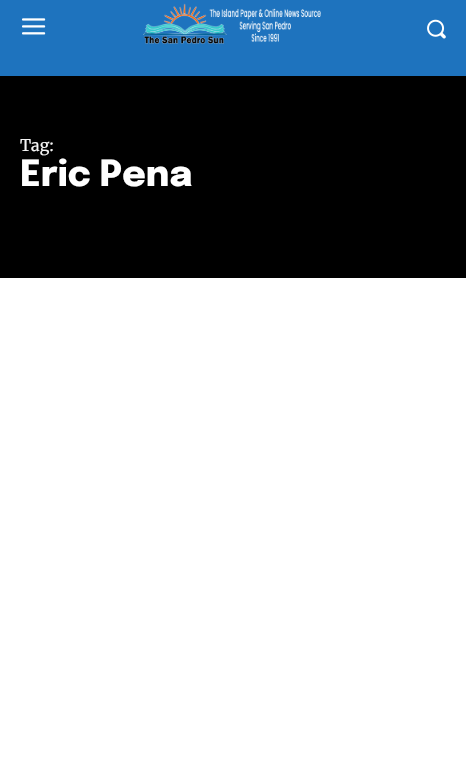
void draw(SkCanvas* canvas) {
	SkPaint fill;
	fill.setAntiAlias(true);
	auto makeFont = [&](const char* family, int weight, float size, bool italic = false) {
		SkFontStyle style(weight, SkFontStyle::kNormal_Width,
			italic ? SkFontStyle::kItalic_Slant : SkFontStyle::kUpright_Slant);
		SkFont result(fontMgr->matchFamilyStyle(family, style), size);
		result.setSubpixel(true);
		return result;
	};
	auto text = [&](const char* s, float x, float y, const SkFont& font) {
		canvas->drawString(s, x, y, font, fill);
	};
	auto box = [&](float l, float t, float r, float b) {
		canvas->drawRect(SkRect::MakeLTRB(l, t, r, b), fill);
	};
	auto picture = [&](const char* path, float l, float t, float r, float b) {
		auto image = SkImages::DeferredFromEncodedData(SkData::MakeFromFileName(path));
		canvas->drawImageRect(image, SkRect::MakeLTRB(l, t, r, b), SkSamplingOptions());
	};
	canvas->clear(0xFFFFFFFF);
	fill.setColor(0xFF1E73BE);
	box(0, 0, 466, 76);
	picture("image0.png", 22, 18, 46, 35);
	picture("image1.png", 143, 3, 321, 44);
	picture("image2.png", 427, 19, 446, 39);
	fill.setColor(0xFF000000);
	box(0, 76, 466, 278);
	auto font1 = makeFont("Merriweather", 400, 16);
	fill.setColor(0xFFF4F4F4);
	text("Tag:", 20, 151, font1);
	auto font2 = makeFont("Epilogue", 800, 36);
	fill.setColor(0xFFFFFFFF);
	text("Eric Pena", 20, 186, font2);
}
